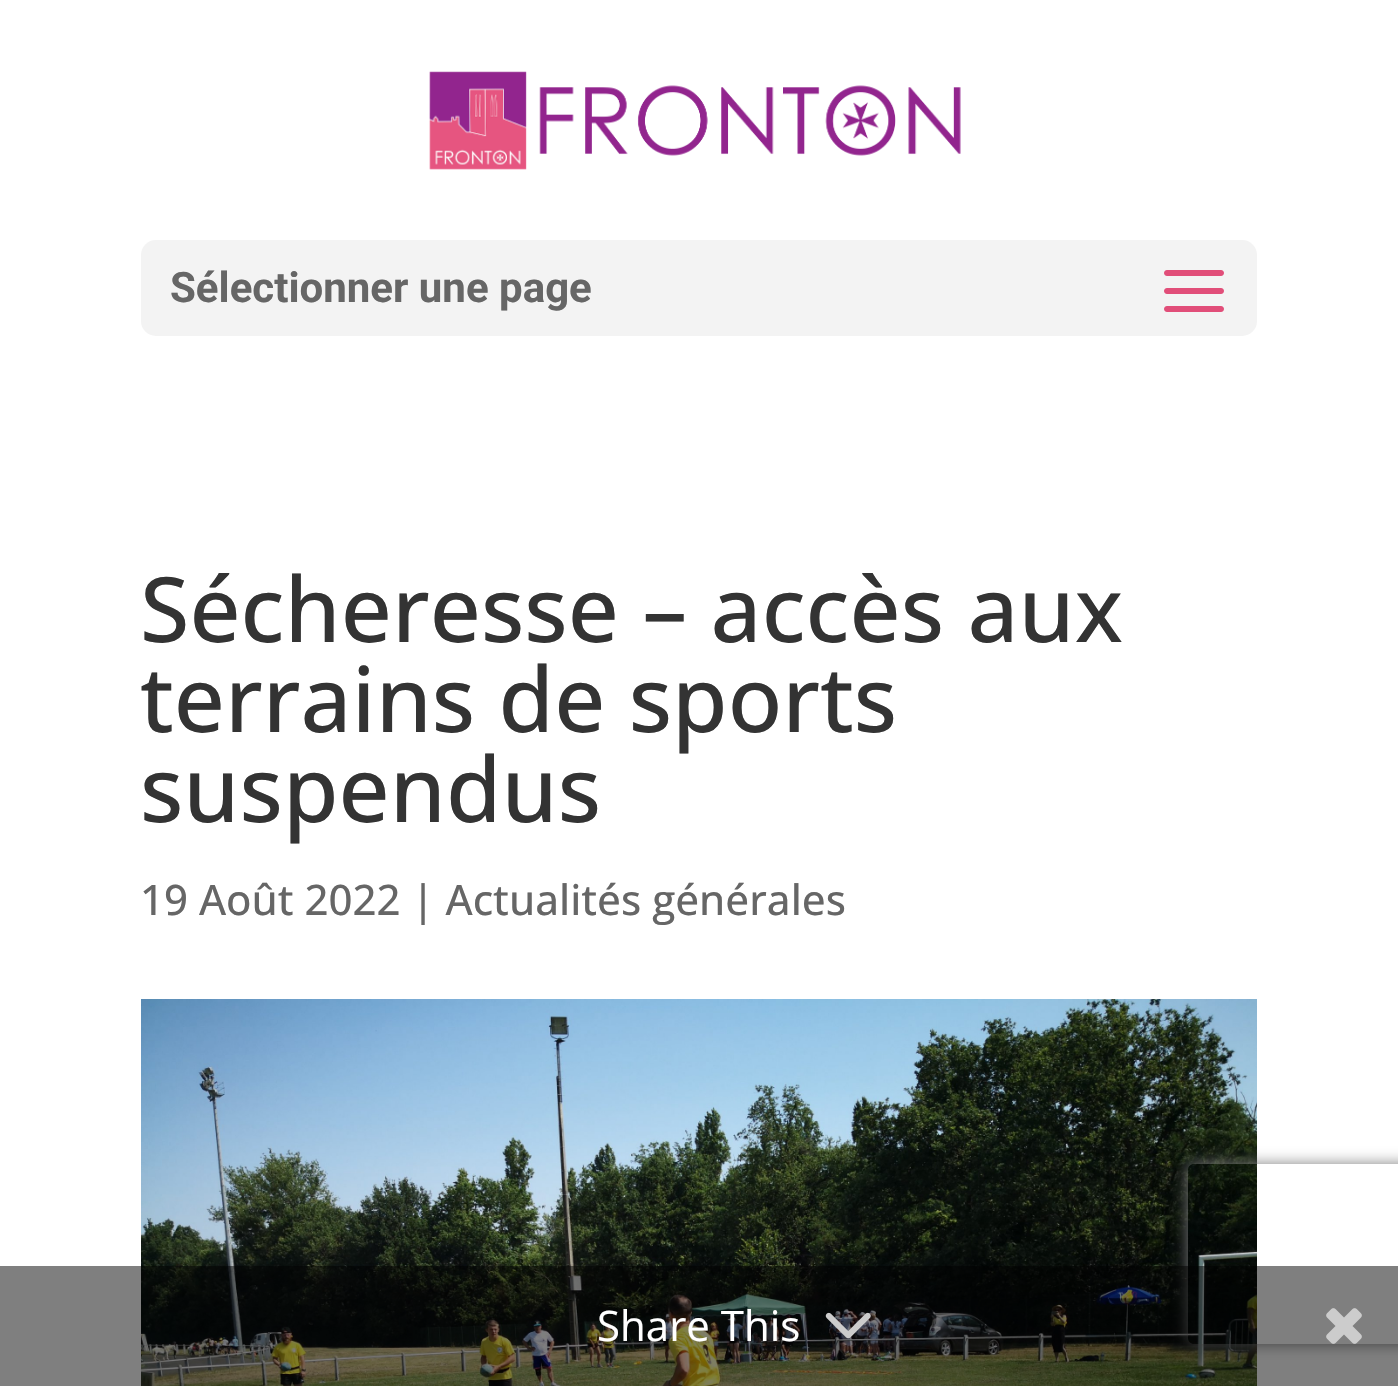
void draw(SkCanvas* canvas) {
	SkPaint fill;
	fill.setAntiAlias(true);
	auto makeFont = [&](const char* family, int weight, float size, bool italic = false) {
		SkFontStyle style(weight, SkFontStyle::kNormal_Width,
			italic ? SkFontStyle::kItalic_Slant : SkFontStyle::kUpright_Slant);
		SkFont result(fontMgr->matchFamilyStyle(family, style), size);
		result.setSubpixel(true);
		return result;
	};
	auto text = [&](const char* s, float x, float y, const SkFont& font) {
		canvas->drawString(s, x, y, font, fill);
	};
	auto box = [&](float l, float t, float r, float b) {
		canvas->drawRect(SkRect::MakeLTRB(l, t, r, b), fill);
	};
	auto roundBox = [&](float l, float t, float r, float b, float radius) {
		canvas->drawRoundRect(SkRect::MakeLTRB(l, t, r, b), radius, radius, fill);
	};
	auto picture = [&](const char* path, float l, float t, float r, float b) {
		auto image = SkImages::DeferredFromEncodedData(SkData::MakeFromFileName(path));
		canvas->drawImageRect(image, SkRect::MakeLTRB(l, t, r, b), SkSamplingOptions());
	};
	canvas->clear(0xFFFFFFFF);
	picture("image0.png", 429, 71, 961, 170);
	fill.setColor(0xFFF3F3F3);
	roundBox(141, 240, 1257, 336, 15);
	picture("image1.png", 1164, 270, 1224, 312);
	picture("image2.png", 141, 999, 1257, 1386);
	canvas->save();
	canvas->clipPath(SkPathBuilder(SkPathFillType::kEvenOdd).moveTo(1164, 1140).lineTo(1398, 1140).lineTo(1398, 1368).lineTo(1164, 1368).close().moveTo(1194, 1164).lineTo(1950, 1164).cubicTo(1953.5f, 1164, 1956, 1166.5f, 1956, 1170).lineTo(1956, 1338).cubicTo(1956, 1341.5f, 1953.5f, 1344, 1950, 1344).lineTo(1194, 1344).cubicTo(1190.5f, 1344, 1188, 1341.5f, 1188, 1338).lineTo(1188, 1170).cubicTo(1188, 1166.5f, 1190.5f, 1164, 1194, 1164).close().detach(), true);
	fill.setColor(0xFF808080);
	fill.setMaskFilter(SkMaskFilter::MakeBlur(kNormal_SkBlurStyle, 7.5f));
	canvas->drawRoundRect(SkRect::MakeLTRB(1188, 1164, 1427, 1344), 6, 6, fill);
	fill.setMaskFilter(nullptr);
	canvas->restore();
	fill.setColor(0x80000000);
	box(0, 1266, 1398, 1386);
	picture("image3.png", 825, 1312, 871, 1339);
	picture("image4.png", 1326, 1308, 1362, 1344);
	auto font1 = makeFont("Roboto", 700, 42);
	fill.setColor(0xFF666666);
	text("Sélectionner une page", 170, 302, font1);
	auto font2 = makeFont("Open Sans", 500, 90);
	fill.setColor(0xFF333333);
	text("Sécheresse – accès aux", 140, 642, font2);
	text("terrains de sports", 140, 732, font2);
	text("suspendus", 140, 822, font2);
	auto font3 = makeFont("Open Sans", 500, 42);
	fill.setColor(0xFF666666);
	text("19 Août 2022 | Actualités générales", 140, 915, font3);
	auto font4 = makeFont("Open Sans", 400, 42);
	fill.setColor(0xFFFFFFFF);
	text("Share This", 597, 1341, font4);
}
